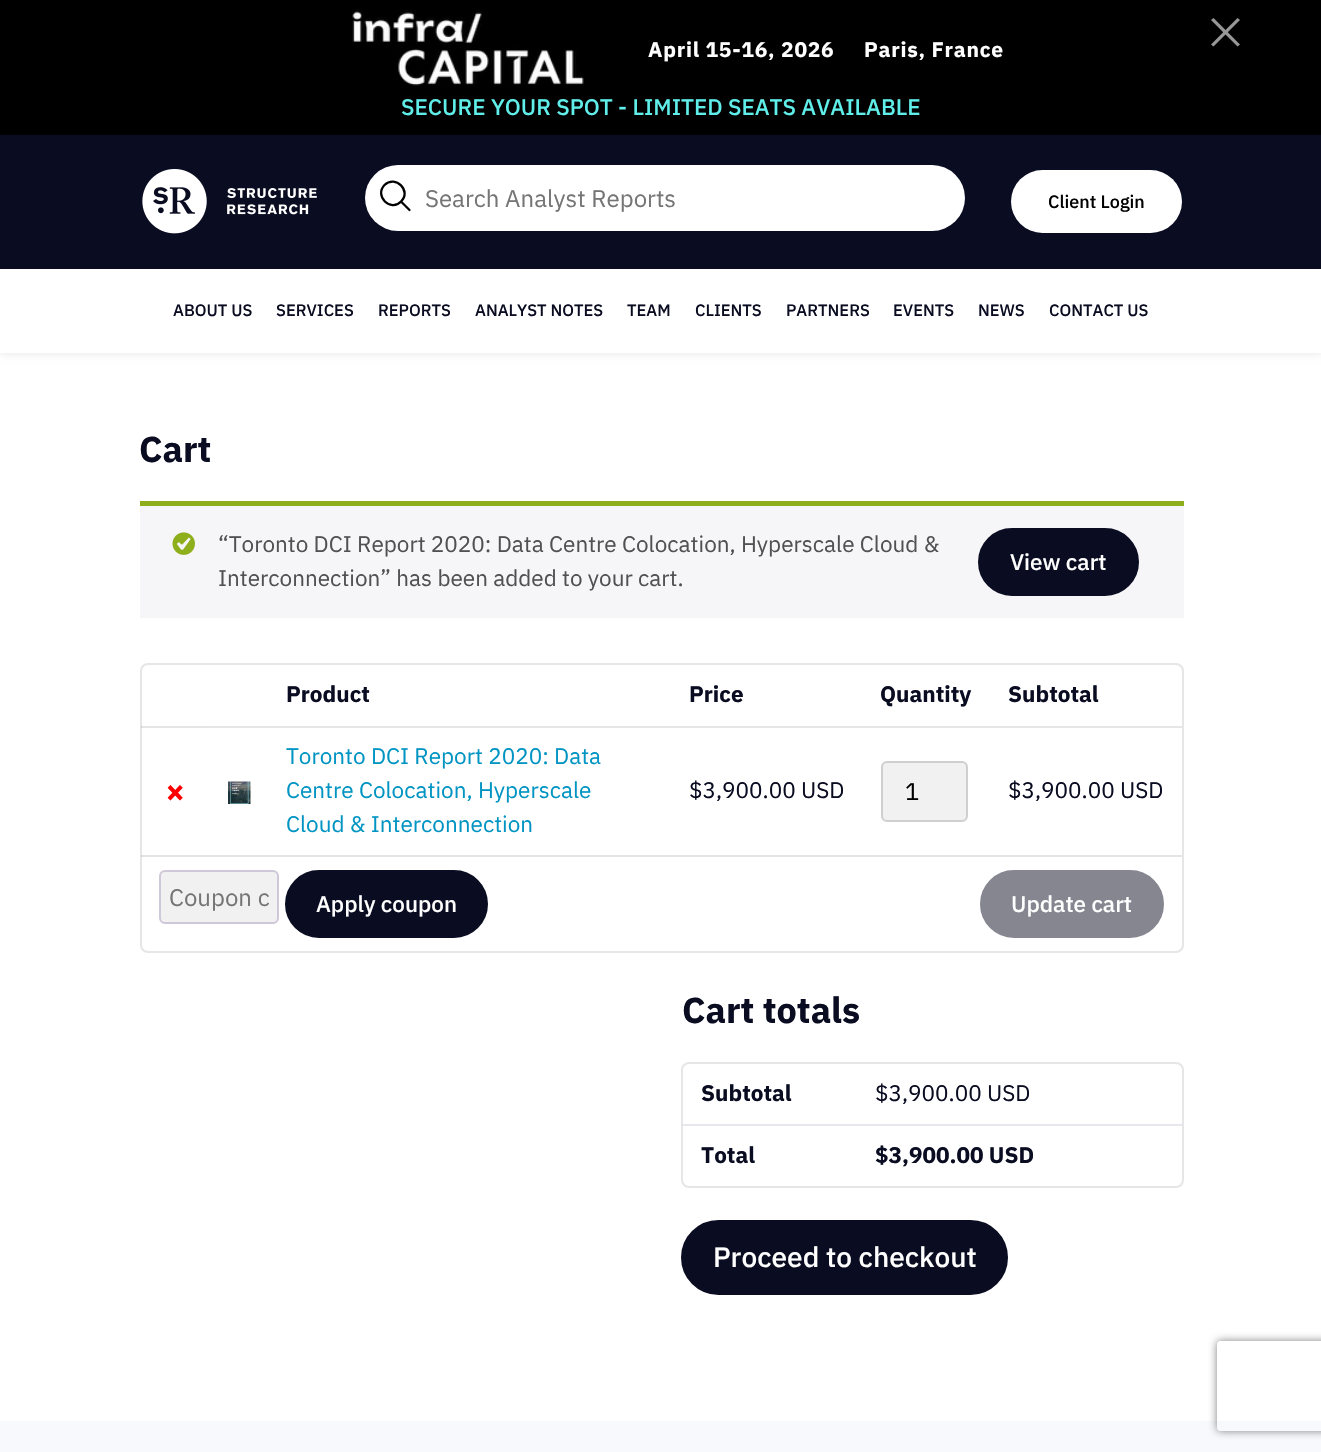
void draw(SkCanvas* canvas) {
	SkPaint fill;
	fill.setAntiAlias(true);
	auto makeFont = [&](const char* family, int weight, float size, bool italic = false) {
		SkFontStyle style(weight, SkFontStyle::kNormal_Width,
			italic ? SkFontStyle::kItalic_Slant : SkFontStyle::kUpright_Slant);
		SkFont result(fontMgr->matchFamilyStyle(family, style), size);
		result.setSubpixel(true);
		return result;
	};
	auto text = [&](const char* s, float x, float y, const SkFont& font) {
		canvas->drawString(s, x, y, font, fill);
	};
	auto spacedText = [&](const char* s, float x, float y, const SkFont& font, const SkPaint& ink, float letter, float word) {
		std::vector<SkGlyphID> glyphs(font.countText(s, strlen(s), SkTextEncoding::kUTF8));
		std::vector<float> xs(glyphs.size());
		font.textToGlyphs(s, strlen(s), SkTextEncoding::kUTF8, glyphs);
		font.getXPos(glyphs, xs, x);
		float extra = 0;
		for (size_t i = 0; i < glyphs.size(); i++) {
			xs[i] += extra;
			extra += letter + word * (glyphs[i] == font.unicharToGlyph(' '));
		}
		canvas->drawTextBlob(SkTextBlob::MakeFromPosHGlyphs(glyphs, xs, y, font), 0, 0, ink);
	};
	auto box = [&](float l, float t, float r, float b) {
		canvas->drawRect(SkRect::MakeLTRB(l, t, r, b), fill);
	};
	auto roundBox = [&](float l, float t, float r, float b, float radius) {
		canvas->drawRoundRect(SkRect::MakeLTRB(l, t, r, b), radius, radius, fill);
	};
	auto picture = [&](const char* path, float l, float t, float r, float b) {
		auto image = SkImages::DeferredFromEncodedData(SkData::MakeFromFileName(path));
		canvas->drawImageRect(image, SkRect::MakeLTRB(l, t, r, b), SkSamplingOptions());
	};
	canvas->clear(0xFFFFFFFF);
	fill.setColor(0xFF000000);
	box(0, 0, 1321, 135);
	fill.setColor(0xFF979797);
	canvas->drawPath(SkPathBuilder().moveTo(1211, 20).lineTo(1213.5f, 18).lineTo(1240, 44.5f).lineTo(1237.5f, 46.5f).close().detach(), fill);
	canvas->drawPath(SkPathBuilder().moveTo(1237.5f, 18).lineTo(1240, 20).lineTo(1213.5f, 46.5f).lineTo(1211, 44.5f).close().detach(), fill);
	picture("image0.png", 352, 9, 584, 86);
	fill.setColor(0xFF0A0C21);
	box(0, 135, 1321, 269);
	picture("image1.png", 142, 169, 317, 234);
	fill.setColor(0xFFFFFFFF);
	roundBox(365, 165, 965, 231, 33);
	fill.setStyle(SkPaint::kStroke_Style);
	fill.setStrokeWidth(2.3f);
	fill.setStrokeCap(SkPaint::kRound_Cap);
	fill.setStrokeJoin(SkPaint::kRound_Join);
	fill.setColor(0xFF000000);
	canvas->drawPath(SkPathBuilder().moveTo(409.5f, 210).lineTo(401, 201.5f).moveTo(401, 201.5f).cubicTo(412, 191, 395.5f, 174.5f, 384.5f, 185).cubicTo(374, 196, 390.5f, 212.5f, 401, 201.5f).close().detach(), fill);
	fill.setStyle(SkPaint::kFill_Style);
	fill.setColor(0xFFFFFFFF);
	roundBox(1011, 170, 1182, 233, 31.5f);
	fill.setColor(0x1A000000);
	fill.setMaskFilter(SkMaskFilter::MakeBlur(kNormal_SkBlurStyle, 4));
	canvas->drawRect(SkRect::MakeLTRB(0, 269, 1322, 353), fill);
	fill.setMaskFilter(nullptr);
	fill.setColor(0xFFFFFFFF);
	box(0, 269, 1321, 353);
	fill.setColor(0xFFF6F5F8);
	box(140, 506, 1184, 618);
	fill.setColor(0xFF8FAE1B);
	box(140, 501, 1184, 506);
	picture("image2.png", 172, 532, 195, 555);
	fill.setColor(0xFF0A0C21);
	canvas->drawRoundRect(SkRect::MakeLTRB(979, 529, 1138, 595), 33, 33, fill);
	fill.setStyle(SkPaint::kStroke_Style);
	fill.setStrokeWidth(2);
	fill.setStrokeCap(SkPaint::kButt_Cap);
	fill.setStrokeJoin(SkPaint::kMiter_Join);
	canvas->drawRoundRect(SkRect::MakeLTRB(979, 529, 1138, 595), 33, 33, fill);
	fill.setColor(0xFFE6E6E6);
	canvas->drawRoundRect(SkRect::MakeLTRB(141, 664, 1183, 952), 7, 7, fill);
	fill.setStyle(SkPaint::kFill_Style);
	box(210, 726, 1182, 728);
	picture("image3.png", 228, 781, 251, 804);
	fill.setColor(0x1A000000);
	box(141, 726, 210, 728);
	fill.setColor(0xFFF1F1F1);
	canvas->drawRoundRect(SkRect::MakeLTRB(882, 762, 967, 821), 5, 5, fill);
	fill.setStyle(SkPaint::kStroke_Style);
	fill.setColor(0xFFCFCFCF);
	canvas->drawRoundRect(SkRect::MakeLTRB(882, 762, 967, 821), 5, 5, fill);
	fill.setStyle(SkPaint::kFill_Style);
	fill.setColor(0x1A000000);
	box(141, 855, 1182, 857);
	fill.setColor(0xFFF1F1F1);
	canvas->drawRoundRect(SkRect::MakeLTRB(160, 871, 278, 923), 5, 5, fill);
	fill.setStyle(SkPaint::kStroke_Style);
	fill.setColor(0xFFCFC8D8);
	canvas->drawRoundRect(SkRect::MakeLTRB(160, 871, 278, 923), 5, 5, fill);
	fill.setStyle(SkPaint::kFill_Style);
	fill.setColor(0xFF0A0C21);
	canvas->drawRoundRect(SkRect::MakeLTRB(286, 871, 487, 937), 33, 33, fill);
	fill.setStyle(SkPaint::kStroke_Style);
	canvas->drawRoundRect(SkRect::MakeLTRB(286, 871, 487, 937), 33, 33, fill);
	fill.setStyle(SkPaint::kFill_Style);
	fill.setColor(0xFF858690);
	canvas->drawRoundRect(SkRect::MakeLTRB(981, 871, 1163, 937), 33, 33, fill);
	fill.setStyle(SkPaint::kStroke_Style);
	canvas->drawRoundRect(SkRect::MakeLTRB(981, 871, 1163, 937), 33, 33, fill);
	fill.setColor(0xFFE6E6E6);
	canvas->drawRoundRect(SkRect::MakeLTRB(682, 1063, 1183, 1187), 7, 7, fill);
	fill.setStyle(SkPaint::kFill_Style);
	fill.setColor(0xFFE9E6ED);
	box(683, 1124, 1182, 1126);
	fill.setColor(0xFF0A0C21);
	canvas->drawRoundRect(SkRect::MakeLTRB(682, 1221, 1007, 1294), 36.5f, 36.5f, fill);
	fill.setStyle(SkPaint::kStroke_Style);
	canvas->drawRoundRect(SkRect::MakeLTRB(682, 1221, 1007, 1294), 36.5f, 36.5f, fill);
	fill.setStyle(SkPaint::kFill_Style);
	fill.setColor(0xFFF8F9FD);
	box(0, 1421, 1321, 1452);
	canvas->save();
	canvas->clipPath(SkPathBuilder(SkPathFillType::kEvenOdd).moveTo(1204, 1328).lineTo(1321, 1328).lineTo(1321, 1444).lineTo(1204, 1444).close().moveTo(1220, 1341).lineTo(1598, 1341).cubicTo(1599.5f, 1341, 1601, 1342.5f, 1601, 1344).lineTo(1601, 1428).cubicTo(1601, 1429.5f, 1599.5f, 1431, 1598, 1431).lineTo(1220, 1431).cubicTo(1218.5f, 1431, 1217, 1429.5f, 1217, 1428).lineTo(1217, 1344).cubicTo(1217, 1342.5f, 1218.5f, 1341, 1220, 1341).close().detach(), true);
	fill.setColor(0xFF808080);
	fill.setMaskFilter(SkMaskFilter::MakeBlur(kNormal_SkBlurStyle, 4));
	canvas->drawRoundRect(SkRect::MakeLTRB(1217, 1341, 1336, 1431), 3, 3, fill);
	fill.setMaskFilter(nullptr);
	canvas->restore();
	auto font1 = makeFont("IBM Plex Sans", 700, 21);
	fill.setColor(0xFFFFFFFF);
	spacedText("April 15-16, 2026", 648, 57, font1, fill, 0.75f, 0);
	spacedText("Paris, France", 864, 57, font1, fill, 0.75f, 0);
	auto font2 = makeFont("IBM Plex Sans", 500, 22.5f);
	fill.setColor(0xFF5FEEE9);
	text("SECURE YOUR SPOT - LIMITED SEATS AVAILABLE", 401, 115, font2);
	auto font3 = makeFont("IBM Plex Sans", 400, 24);
	fill.setColor(0xFF757575);
	text("Search Analyst Reports", 425, 207, font3);
	auto font4 = makeFont("IBM Plex Sans", 500, 18);
	fill.setColor(0xFF000000);
	text("Client Login", 1048, 208, font4);
	auto font5 = makeFont("IBM Plex Sans", 500, 16.5f);
	fill.setColor(0xFF0A0C21);
	text("ABOUT US", 173, 316, font5);
	text("SERVICES", 276, 316, font5);
	text("REPORTS", 378, 316, font5);
	text("ANALYST NOTES", 475, 316, font5);
	text("TEAM", 627, 316, font5);
	text("CLIENTS", 695, 316, font5);
	text("PARTNERS", 786, 316, font5);
	text("EVENTS", 893, 316, font5);
	text("NEWS", 978, 316, font5);
	text("CONTACT US", 1049, 316, font5);
	auto font6 = makeFont("IBM Plex Sans", 700, 36);
	text("Cart", 139, 462, font6);
	auto font7 = makeFont("IBM Plex Sans", 400, 22.5f);
	fill.setColor(0xFF515151);
	text("“Toronto DCI Report 2020: Data Centre Colocation, Hyperscale Cloud &", 218, 552, font7);
	fill.setColor(0xFFFFFFFF);
	text("View cart", 1010, 570, font2);
	fill.setColor(0xFF515151);
	text("Interconnection” has been added to your cart.", 218, 586, font7);
	auto font8 = makeFont("IBM Plex Sans", 700, 22.5f);
	fill.setColor(0xFF0A0C21);
	text("Product", 286, 702, font8);
	text("Price", 689, 702, font8);
	text("Quantity", 880, 702, font8);
	text("Subtotal", 1008, 702, font8);
	auto font9 = makeFont("IBM Plex Sans", 700, 34);
	fill.setColor(0xFFFF0000);
	text("×", 165, 803, font9);
	fill.setColor(0xFF0094C3);
	text("Toronto DCI Report 2020: Data", 286, 764, font7);
	text("Centre Colocation, Hyperscale", 286, 798, font7);
	text("Cloud & Interconnection", 286, 832, font7);
	fill.setColor(0xFF0A0C21);
	text("$3,900.00 USD", 689, 798, font7);
	fill.setColor(0xFF000000);
	text("1", 905, 800, font3);
	fill.setColor(0xFF0A0C21);
	text("$3,900.00 USD", 1008, 798, font7);
	fill.setColor(0xFF757575);
	text("Coupon c", 169, 906, font3);
	fill.setColor(0xFFFFFFFF);
	text("Apply coupon", 316, 912, font2);
	text("Update cart", 1011, 912, font2);
	fill.setColor(0xFF0A0C21);
	text("Cart totals", 682, 1023, font6);
	text("Subtotal", 701, 1101, font8);
	text("$3,900.00 USD", 875, 1101, font7);
	text("Total", 701, 1163, font8);
	text("$3,900.00 USD", 875, 1163, font8);
	auto font10 = makeFont("IBM Plex Sans", 500, 28.1f);
	fill.setColor(0xFFFFFFFF);
	text("Proceed to checkout", 713, 1267, font10);
}
